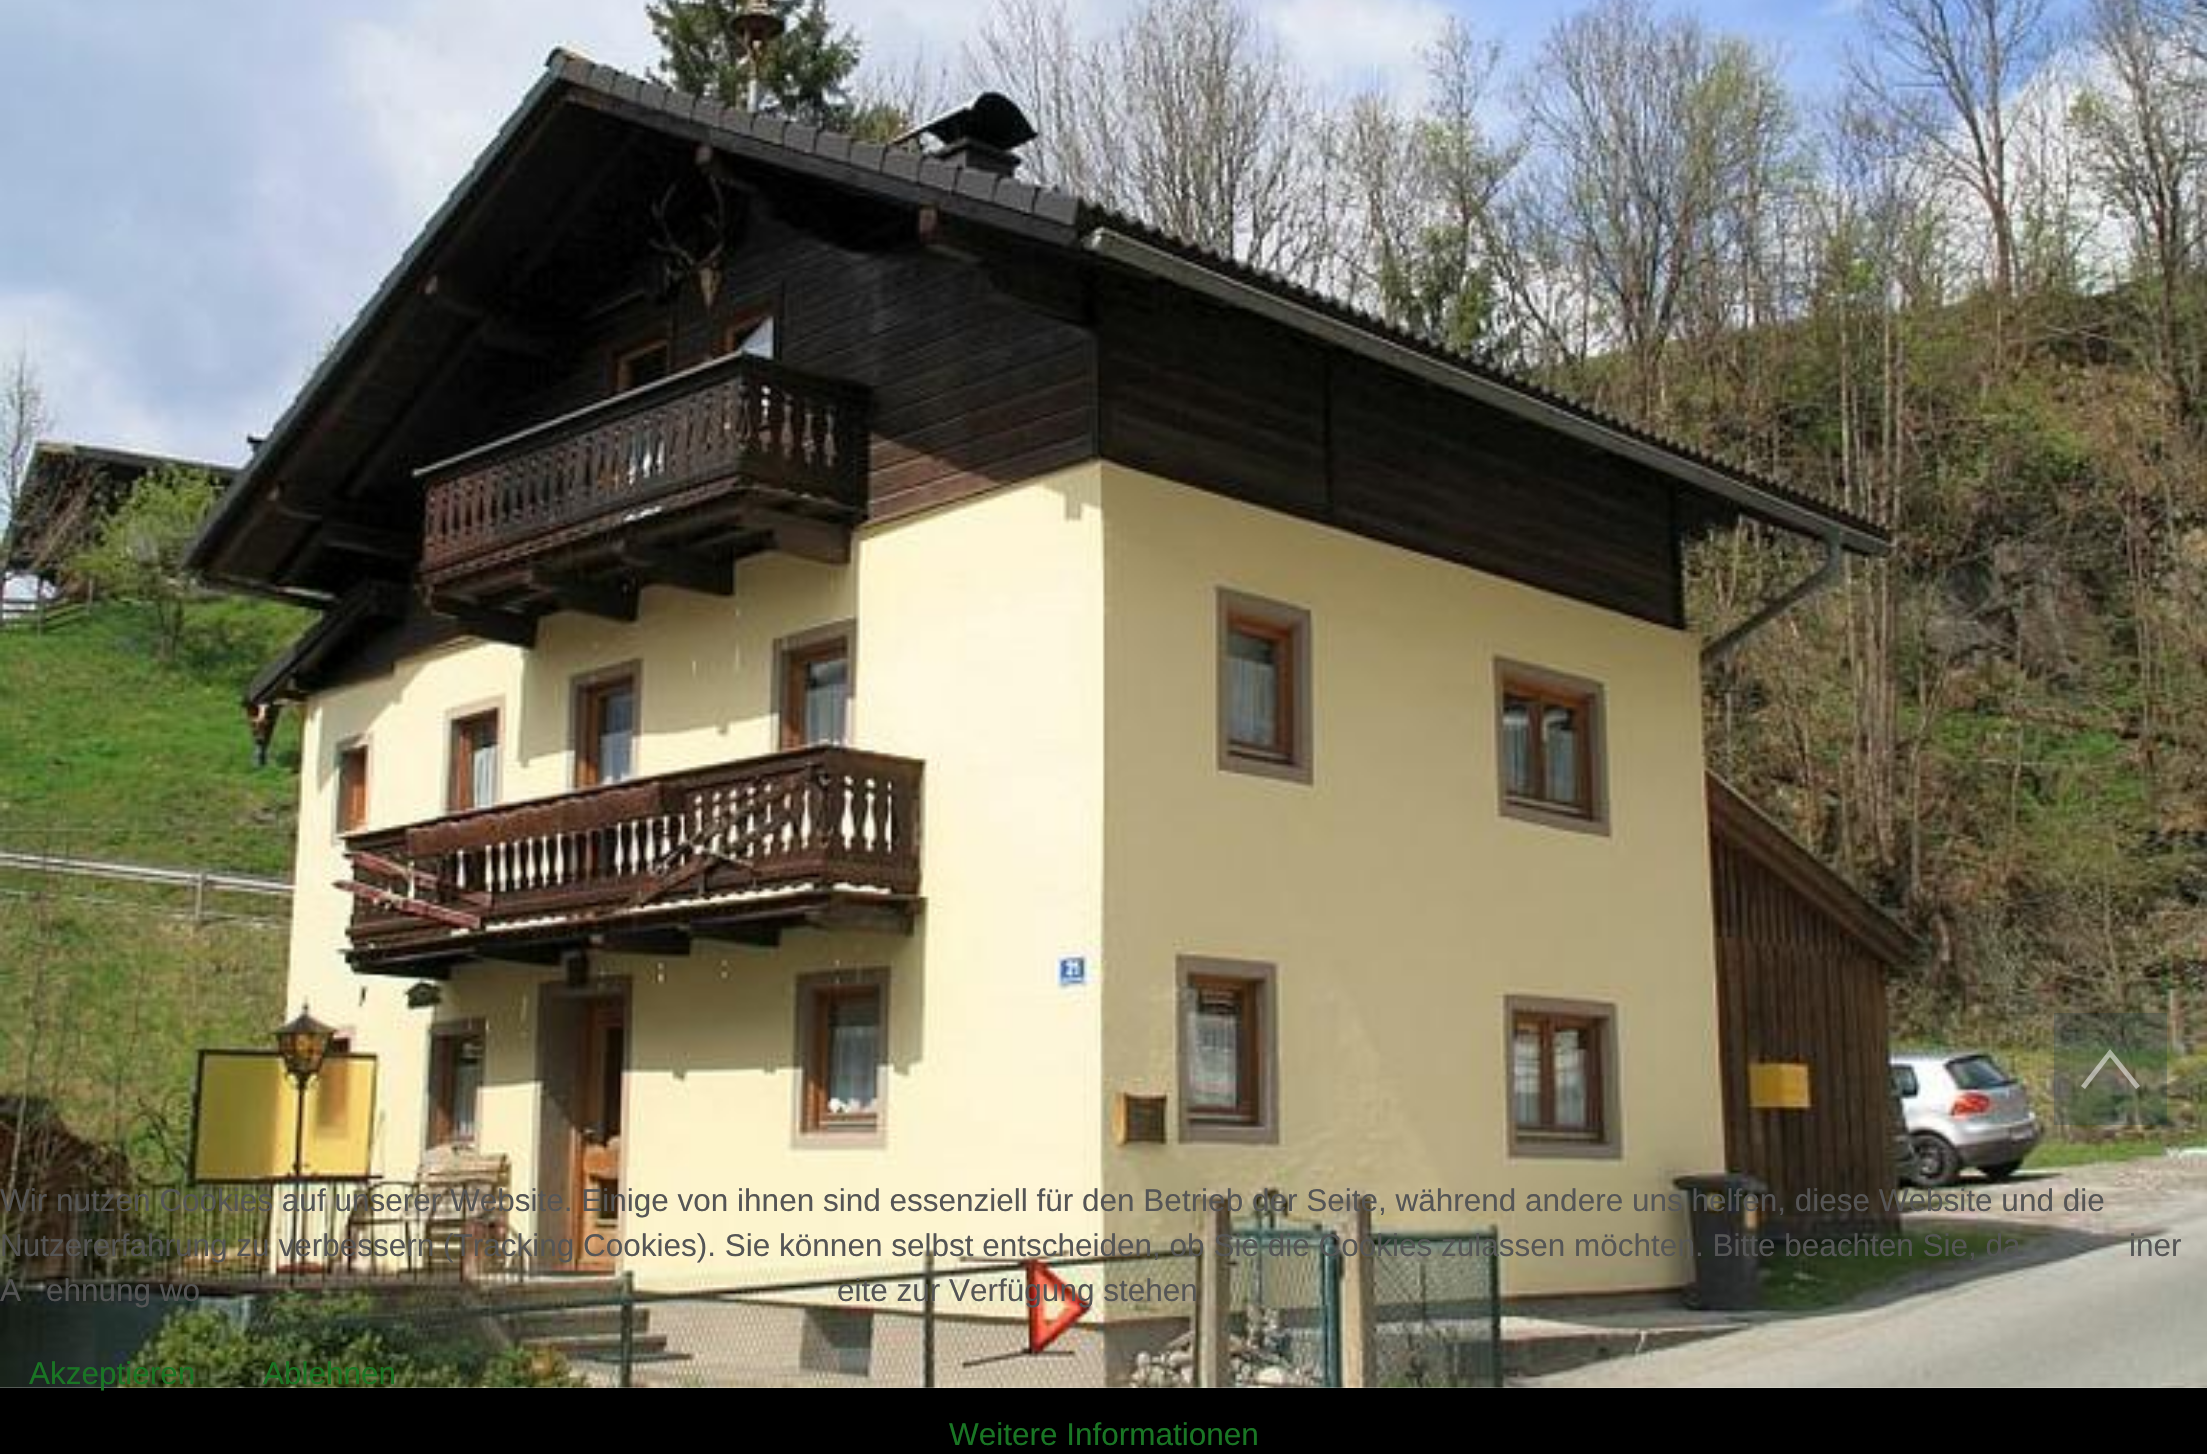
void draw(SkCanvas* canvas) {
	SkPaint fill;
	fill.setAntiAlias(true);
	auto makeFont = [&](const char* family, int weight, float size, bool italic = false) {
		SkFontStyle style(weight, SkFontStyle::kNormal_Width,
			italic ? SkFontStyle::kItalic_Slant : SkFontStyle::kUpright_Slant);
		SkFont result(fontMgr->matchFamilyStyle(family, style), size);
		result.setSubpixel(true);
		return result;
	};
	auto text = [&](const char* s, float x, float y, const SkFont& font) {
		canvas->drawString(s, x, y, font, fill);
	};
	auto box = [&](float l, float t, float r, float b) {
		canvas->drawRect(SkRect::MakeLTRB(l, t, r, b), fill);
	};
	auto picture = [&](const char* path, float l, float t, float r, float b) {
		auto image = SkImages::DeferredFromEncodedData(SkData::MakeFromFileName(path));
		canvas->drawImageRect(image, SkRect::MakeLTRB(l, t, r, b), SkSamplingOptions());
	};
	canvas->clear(0xFFFFFFFF);
	picture("image0.png", 0, 0, 2207, 1388);
	fill.setColor(0x400E313F);
	box(2054, 1013, 2167, 1125);
	fill.setColor(0x80FFFFFF);
	canvas->drawPath(SkPathBuilder().moveTo(2110, 1049).lineTo(2140, 1086).lineTo(2136, 1089).lineTo(2110, 1057).lineTo(2085, 1089).lineTo(2081, 1086).close().detach(), fill);
	fill.setColor(0xFF000000);
	box(0, 1388, 2207, 1454);
	auto font1 = makeFont("Liberation Sans", 400, 31.5f);
	fill.setColor(0xFF555555);
	text("Wir nutzen Cookies auf unserer Website. Einige von ihnen sind essenziell für den Betrieb der Seite, während andere uns helfen, diese Website und die", 0, 1211, font1);
	text("Nutzererfahrung zu verbessern (Tracking Cookies). Sie können selbst entscheiden, ob Sie die Cookies zulassen möchten. Bitte beachten Sie, da", 0, 1256, font1);
	text("iner", 2129, 1256, font1);
	text("A", 0, 1301, font1);
	text("ehnung wo", 46, 1301, font1);
	text("eite zur Verfügung stehen", 837, 1301, font1);
	fill.setColor(0xFF197624);
	text("Akzeptieren", 29, 1384, font1);
	text("Ablehnen", 263, 1384, font1);
	text("Weitere Informationen", 949, 1445, font1);
}
